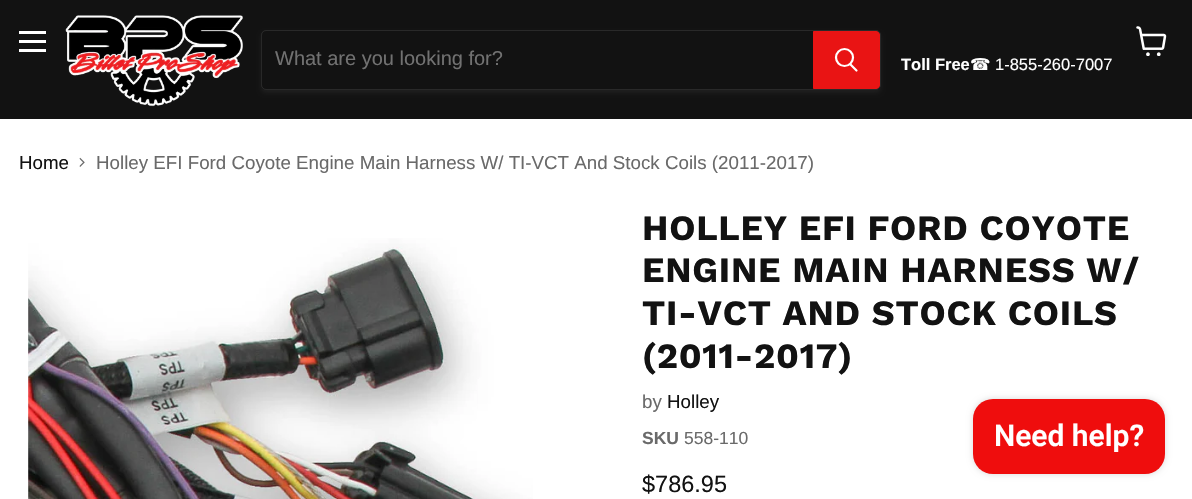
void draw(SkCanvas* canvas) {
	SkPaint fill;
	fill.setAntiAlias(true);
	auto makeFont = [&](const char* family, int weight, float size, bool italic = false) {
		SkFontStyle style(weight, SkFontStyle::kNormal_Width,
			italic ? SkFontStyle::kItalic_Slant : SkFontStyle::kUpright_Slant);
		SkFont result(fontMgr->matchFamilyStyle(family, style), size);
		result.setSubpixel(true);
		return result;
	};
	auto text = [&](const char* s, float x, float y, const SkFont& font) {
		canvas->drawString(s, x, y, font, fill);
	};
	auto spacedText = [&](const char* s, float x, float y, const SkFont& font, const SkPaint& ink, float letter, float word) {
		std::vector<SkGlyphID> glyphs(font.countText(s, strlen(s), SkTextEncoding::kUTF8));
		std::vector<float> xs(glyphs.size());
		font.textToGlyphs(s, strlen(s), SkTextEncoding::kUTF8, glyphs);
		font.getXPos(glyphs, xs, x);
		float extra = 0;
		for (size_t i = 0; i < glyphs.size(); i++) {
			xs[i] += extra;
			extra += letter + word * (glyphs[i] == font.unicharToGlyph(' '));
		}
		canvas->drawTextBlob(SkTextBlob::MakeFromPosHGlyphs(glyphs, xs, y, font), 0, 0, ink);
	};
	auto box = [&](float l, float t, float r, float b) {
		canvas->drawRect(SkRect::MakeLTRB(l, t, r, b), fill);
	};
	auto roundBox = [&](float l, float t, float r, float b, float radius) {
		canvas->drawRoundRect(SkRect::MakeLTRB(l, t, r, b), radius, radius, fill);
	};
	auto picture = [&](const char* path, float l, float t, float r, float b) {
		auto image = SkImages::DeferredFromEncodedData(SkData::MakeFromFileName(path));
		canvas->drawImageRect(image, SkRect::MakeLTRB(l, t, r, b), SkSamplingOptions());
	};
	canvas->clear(0xFFFFFFFF);
	fill.setColor(0xFF121212);
	box(0, 0, 1192, 119);
	fill.setColor(0xFFFFFFFF);
	box(19, 31, 46, 34);
	box(19, 40, 46, 43);
	box(19, 49, 46, 52);
	picture("image0.png", 1136, 26, 1167, 56);
	picture("image1.png", 65, 15, 243, 107);
	canvas->save();
	canvas->clipPath(SkPathBuilder(SkPathFillType::kEvenOdd).moveTo(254, 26).lineTo(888, 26).lineTo(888, 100).lineTo(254, 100).close().moveTo(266, 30).lineTo(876, 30).cubicTo(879, 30, 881, 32, 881, 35).lineTo(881, 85).cubicTo(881, 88, 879, 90, 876, 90).lineTo(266, 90).cubicTo(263, 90, 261, 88, 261, 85).lineTo(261, 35).cubicTo(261, 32, 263, 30, 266, 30).close().detach(), true);
	fill.setColor(0x1C808080);
	fill.setMaskFilter(SkMaskFilter::MakeBlur(kNormal_SkBlurStyle, 2));
	canvas->drawRoundRect(SkRect::MakeLTRB(261, 33, 881, 93), 5, 5, fill);
	fill.setMaskFilter(nullptr);
	canvas->restore();
	fill.setStyle(SkPaint::kStroke_Style);
	fill.setStrokeWidth(1);
	fill.setColor(0x33808080);
	canvas->drawRoundRect(SkRect::MakeLTRB(261.5f, 30.5f, 880.5f, 89.5f), 4.5f, 4.5f, fill);
	fill.setStyle(SkPaint::kFill_Style);
	fill.setColor(0xFFE91414);
	canvas->drawPath(SkPathBuilder().moveTo(813.5f, 31.5f).lineTo(876, 31.5f).cubicTo(878, 31.5f, 879.5f, 33, 879.5f, 35).lineTo(879.5f, 85).cubicTo(879.5f, 87, 878, 88.5f, 876, 88.5f).lineTo(813.5f, 88.5f).close().detach(), fill);
	fill.setStyle(SkPaint::kStroke_Style);
	canvas->drawPath(SkPathBuilder().moveTo(813.5f, 31.5f).lineTo(876, 31.5f).cubicTo(878, 31.5f, 879.5f, 33, 879.5f, 35).lineTo(879.5f, 85).cubicTo(879.5f, 87, 878, 88.5f, 876, 88.5f).lineTo(813.5f, 88.5f).close().detach(), fill);
	fill.setStrokeWidth(2.2f);
	fill.setStrokeCap(SkPaint::kRound_Cap);
	fill.setColor(0xFFFFFFFF);
	canvas->drawPath(SkPathBuilder().moveTo(856.5f, 70.5f).lineTo(850.5f, 64.5f).detach(), fill);
	fill.setStrokeCap(SkPaint::kButt_Cap);
	canvas->drawCircle(844.5f, 57.5f, 8.5f, fill);
	picture("image2.png", 79, 157, 85, 167);
	picture("image3.png", 28, 238, 533, 499);
	fill.setStyle(SkPaint::kFill_Style);
	fill.setColor(0x26000000);
	fill.setMaskFilter(SkMaskFilter::MakeBlur(kNormal_SkBlurStyle, 3));
	canvas->drawRoundRect(SkRect::MakeLTRB(973, 399, 1165, 474), 20, 20, fill);
	fill.setMaskFilter(nullptr);
	fill.setColor(0xFFEF0D0D);
	roundBox(973, 399, 1165, 474, 20);
	auto font1 = makeFont("Liberation Sans", 400, 20);
	fill.setColor(0xFF717171);
	text("What are you looking for?", 275, 65, font1);
	auto font2 = makeFont("Liberation Sans", 700, 16.5f);
	fill.setColor(0xFFFFFFFF);
	text("Toll Free", 901, 70, font2);
	auto font3 = makeFont("DejaVu Sans", 400, 16.5f);
	text("☎", 970, 70, font3);
	auto font4 = makeFont("Liberation Sans", 400, 16.5f);
	text("1-855-260-7007", 995, 70, font4);
	auto font5 = makeFont("Liberation Sans", 400, 18.75f);
	fill.setColor(0xFF121212);
	text("Home", 19, 169, font5);
	fill.setColor(0xFF6A6A6A);
	text("Holley EFI Ford Coyote Engine Main Harness W/ TI-VCT And Stock Coils (2011-2017)", 96, 169, font5);
	auto font6 = makeFont("Work Sans", 700, 35.6f);
	fill.setColor(0xFF121212);
	spacedText("HOLLEY EFI FORD COYOTE", 642, 240, font6, fill, 0.75f, 0);
	spacedText("ENGINE MAIN HARNESS W/", 642, 282, font6, fill, 0.75f, 0);
	spacedText("TI-VCT AND STOCK COILS", 642, 325, font6, fill, 0.75f, 0);
	spacedText("(2011-2017)", 642, 368, font6, fill, 0.75f, 0);
	fill.setColor(0xFF6A6A6A);
	text("by", 642, 408, font5);
	fill.setColor(0xFF121212);
	text("Holley", 667, 408, font5);
	auto font7 = makeFont("Liberation Sans", 700, 17.5f);
	fill.setColor(0xFF6A6A6A);
	text("SKU", 642, 444, font7);
	auto font8 = makeFont("Liberation Sans", 400, 17.5f);
	text("558-110", 684, 444, font8);
	auto font9 = makeFont("Liberation Sans", 400, 23.5f);
	fill.setColor(0xFF121212);
	text("$786.95", 642, 492, font9);
	auto font10 = makeFont("Roboto", 600, 30);
	fill.setColor(0xFFFFFFFF);
	text("Need help?", 994, 446, font10);
}
